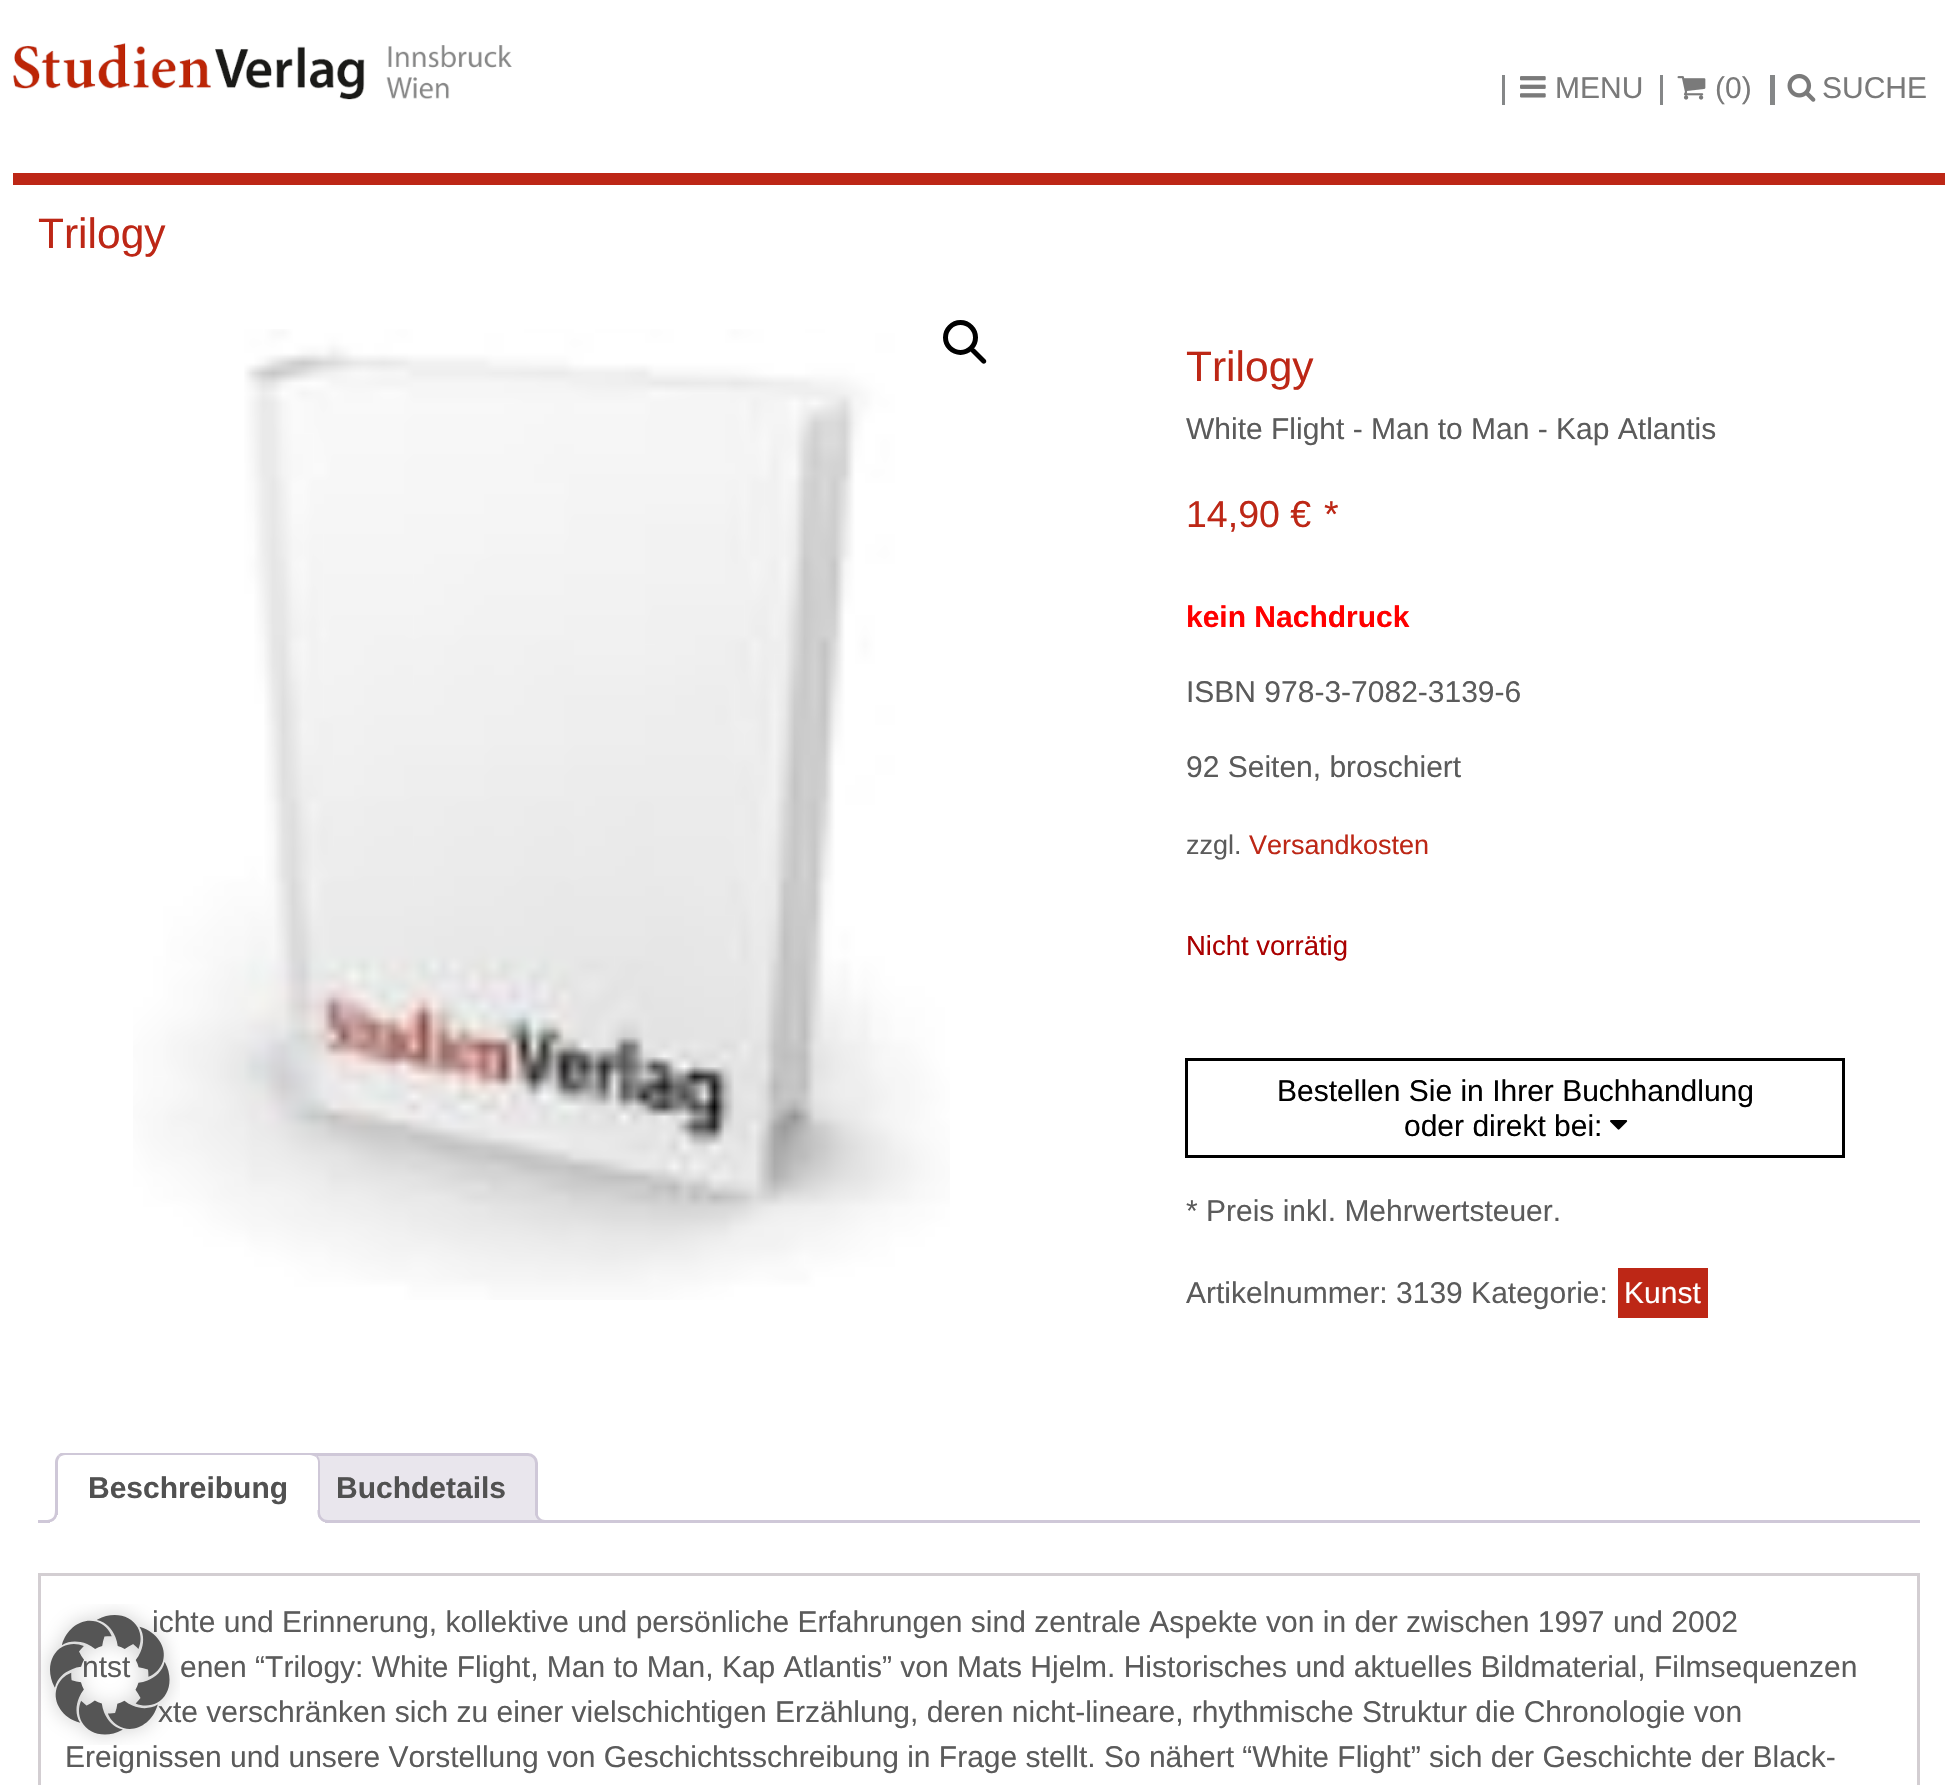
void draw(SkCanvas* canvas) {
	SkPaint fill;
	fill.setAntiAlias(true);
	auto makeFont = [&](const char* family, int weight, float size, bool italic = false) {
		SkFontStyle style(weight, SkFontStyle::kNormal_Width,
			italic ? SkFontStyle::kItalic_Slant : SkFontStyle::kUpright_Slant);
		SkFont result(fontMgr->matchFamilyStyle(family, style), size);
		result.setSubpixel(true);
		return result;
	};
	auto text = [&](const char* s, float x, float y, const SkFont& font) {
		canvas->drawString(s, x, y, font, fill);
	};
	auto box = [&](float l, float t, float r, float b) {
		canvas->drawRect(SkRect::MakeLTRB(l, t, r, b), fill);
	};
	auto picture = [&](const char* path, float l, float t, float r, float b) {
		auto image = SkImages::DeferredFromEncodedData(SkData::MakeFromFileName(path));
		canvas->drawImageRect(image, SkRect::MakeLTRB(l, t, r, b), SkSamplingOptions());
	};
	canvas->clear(0xFFFFFFFF);
	fill.setColor(0xFFBD2716);
	box(13, 173, 1945, 185);
	picture("image0.png", 13, 43, 512, 100);
	fill.setColor(0xFF858788);
	box(1502, 75, 1505, 105);
	picture("image1.png", 1520, 76, 1546, 98);
	box(1660, 75, 1663, 105);
	picture("image2.png", 1677, 76, 1706, 100);
	box(1770, 75, 1775, 105);
	picture("image3.png", 1787, 73, 1816, 102);
	picture("image4.png", 133, 329, 950, 1300);
	fill.setStyle(SkPaint::kStroke_Style);
	fill.setStrokeWidth(5);
	fill.setColor(0xFF000000);
	canvas->drawCircle(960.5f, 337.5f, 15, fill);
	fill.setStyle(SkPaint::kFill_Style);
	canvas->drawPath(SkPathBuilder().moveTo(971.5f, 349).cubicTo(972.5f, 348, 974, 348, 975, 349).lineTo(985.5f, 359.5f).cubicTo(986.5f, 360.5f, 986.5f, 362, 985.5f, 363).cubicTo(984.5f, 364, 983, 364, 982, 363).lineTo(971.5f, 352.5f).cubicTo(970.5f, 351.5f, 970.5f, 350, 971.5f, 349).close().detach(), fill);
	fill.setStyle(SkPaint::kStroke_Style);
	fill.setStrokeWidth(3);
	canvas->drawRect(SkRect::MakeLTRB(1186.5f, 1059.5f, 1843.5f, 1156.5f), fill);
	picture("image5.png", 1610, 1120, 1628, 1130);
	fill.setStyle(SkPaint::kFill_Style);
	fill.setColor(0xFFBD2716);
	box(1618, 1268, 1708, 1318);
	fill.setColor(0xFFE9E6ED);
	canvas->drawPath(SkPathBuilder().moveTo(313, 1454.5f).lineTo(528, 1454.5f).cubicTo(532.5f, 1454.5f, 536.5f, 1458.5f, 536.5f, 1463).lineTo(536.5f, 1521.5f).lineTo(304.5f, 1521.5f).lineTo(304.5f, 1463).cubicTo(304.5f, 1458.5f, 308.5f, 1454.5f, 313, 1454.5f).close().detach(), fill);
	fill.setStyle(SkPaint::kStroke_Style);
	fill.setColor(0xFFCFC8D8);
	canvas->drawPath(SkPathBuilder().moveTo(313, 1454.5f).lineTo(528, 1454.5f).cubicTo(532.5f, 1454.5f, 536.5f, 1458.5f, 536.5f, 1463).lineTo(536.5f, 1521.5f).lineTo(304.5f, 1521.5f).lineTo(304.5f, 1463).cubicTo(304.5f, 1458.5f, 308.5f, 1454.5f, 313, 1454.5f).close().detach(), fill);
	canvas->save();
	canvas->clipRect(SkRect::MakeLTRB(38, 1453, 1920, 1523));
	fill.setStyle(SkPaint::kFill_Style);
	fill.setColor(0xFFE9E6ED);
	canvas->drawPath(SkPathBuilder().moveTo(530, 1515).cubicTo(530, 1524.5f, 533.5f, 1528, 543, 1528).lineTo(543, 1522.5f).cubicTo(539, 1521.5f, 536.5f, 1518.5f, 535.5f, 1515).close().detach(), fill);
	canvas->restore();
	fill.setColor(0xFFCFC8D8);
	canvas->drawPath(SkPathBuilder(SkPathFillType::kEvenOdd).moveTo(535, 1510).lineTo(547.5f, 1510).lineTo(547.5f, 1522.5f).lineTo(545, 1522.5f).cubicTo(539.5f, 1522.5f, 535, 1518, 535, 1512.5f).close().moveTo(537.5f, 1510).lineTo(547.5f, 1510).lineTo(547.5f, 1520).lineTo(545, 1520).cubicTo(541, 1520, 537.5f, 1516.5f, 537.5f, 1512.5f).close().detach(), fill);
	box(38, 1520, 1920, 1523);
	fill.setColor(0xFFFFFFFF);
	canvas->drawPath(SkPathBuilder().moveTo(65, 1453).lineTo(310, 1453).cubicTo(315.5f, 1453, 320, 1457.5f, 320, 1463).lineTo(320, 1523).lineTo(55, 1523).lineTo(55, 1463).cubicTo(55, 1457.5f, 59.5f, 1453, 65, 1453).close().detach(), fill);
	canvas->save();
	canvas->clipRect(SkRect::MakeLTRB(38, 1453, 1920, 1523));
	fill.setColor(0xFFCFC8D8);
	canvas->drawPath(SkPathBuilder().moveTo(65, 1455).cubicTo(63, 1455, 61, 1456, 60, 1457).lineTo(58, 1455).lineTo(62, 1452).lineTo(313, 1452).lineTo(317, 1455).lineTo(316, 1457).cubicTo(314, 1456, 312, 1455, 310, 1455).close().detach(), fill);
	canvas->restore();
	canvas->drawPath(SkPathBuilder().moveTo(320, 1522).lineTo(320, 1462).cubicTo(320, 1460, 319, 1457, 317, 1455).lineTo(316, 1457).cubicTo(317, 1458, 318, 1460, 318, 1462).lineTo(318, 1520).close().detach(), fill);
	fill.setColor(0xFFFFFFFF);
	canvas->drawPath(SkPathBuilder().moveTo(320, 1522).lineTo(56, 1522).lineTo(58, 1520).lineTo(318, 1520).close().detach(), fill);
	fill.setColor(0xFFCFC8D8);
	canvas->drawPath(SkPathBuilder().moveTo(55, 1462).lineTo(55, 1522).lineTo(58, 1520).lineTo(58, 1462).cubicTo(58, 1460, 59, 1458, 60, 1457).lineTo(58, 1455).cubicTo(56, 1457, 55, 1460, 55, 1462).close().detach(), fill);
	canvas->save();
	canvas->clipRect(SkRect::MakeLTRB(38, 1453, 1920, 1523));
	fill.setColor(0xFFFFFFFF);
	canvas->drawPath(SkPathBuilder().moveTo(50, 1522).lineTo(50, 1528).cubicTo(59.5f, 1528, 63, 1524.5f, 63, 1515).lineTo(57, 1515).cubicTo(56.5f, 1518.5f, 53.5f, 1521.5f, 50, 1522).close().detach(), fill);
	canvas->restore();
	fill.setColor(0xFFCFC8D8);
	canvas->drawPath(SkPathBuilder(SkPathFillType::kEvenOdd).moveTo(45, 1510).lineTo(57.5f, 1510).cubicTo(57.5f, 1519, 54, 1522.5f, 45, 1522.5f).close().moveTo(45, 1510).lineTo(55, 1510).cubicTo(55, 1517.5f, 52.5f, 1520, 45, 1520).close().detach(), fill);
	canvas->save();
	canvas->clipRect(SkRect::MakeLTRB(38, 1453, 1920, 1523));
	fill.setColor(0xFFFFFFFF);
	canvas->drawPath(SkPathBuilder().moveTo(313, 1515).lineTo(313, 1520).cubicTo(314.5f, 1526, 319.5f, 1528, 325, 1528).lineTo(325, 1522).cubicTo(321.5f, 1521.5f, 318.5f, 1518.5f, 318, 1515).close().detach(), fill);
	canvas->restore();
	fill.setColor(0xFFCFC8D8);
	canvas->drawPath(SkPathBuilder(SkPathFillType::kEvenOdd).moveTo(317.5f, 1510).lineTo(330, 1510).lineTo(330, 1522.5f).lineTo(327.5f, 1522.5f).cubicTo(322, 1522.5f, 317.5f, 1518, 317.5f, 1512.5f).close().moveTo(320, 1510).lineTo(330, 1510).lineTo(330, 1520).lineTo(327.5f, 1520).cubicTo(323.5f, 1520, 320, 1516.5f, 320, 1512.5f).close().detach(), fill);
	fill.setStyle(SkPaint::kStroke_Style);
	fill.setColor(0xFFD3CED2);
	canvas->drawRect(SkRect::MakeLTRB(39.5f, 1574.5f, 1918.5f, 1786.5f), fill);
	auto font1 = makeFont("Liberation Sans", 400, 30);
	fill.setStyle(SkPaint::kFill_Style);
	fill.setColor(0xFF7A7A7A);
	text("MENU", 1555, 98, font1);
	text("(0)", 1715, 98, font1);
	text("SUCHE", 1822, 98, font1);
	auto font2 = makeFont("Liberation Sans", 400, 42.5f);
	fill.setColor(0xFFBD2716);
	text("Trilogy", 38, 248, font2);
	text("Trilogy", 1186, 381, font2);
	fill.setColor(0xFF5B5B5B);
	text("White Flight - Man to Man - Kap Atlantis", 1186, 439, font1);
	auto font3 = makeFont("Liberation Sans", 400, 37.5f);
	fill.setColor(0xFFBD2716);
	text("14,90 €", 1186, 527, font3);
	text("*", 1324, 527, font3);
	auto font4 = makeFont("Liberation Sans", 700, 30);
	fill.setColor(0xFFFF0000);
	text("kein Nachdruck", 1186, 627, font4);
	fill.setColor(0xFF5B5B5B);
	text("ISBN 978-3-7082-3139-6", 1186, 702, font1);
	text("92 Seiten, broschiert", 1186, 777, font1);
	auto font5 = makeFont("Liberation Sans", 400, 27);
	text("zzgl.", 1186, 854, font5);
	fill.setColor(0xFFBD2716);
	text("Versandkosten", 1249, 854, font5);
	auto font6 = makeFont("Liberation Sans", 400, 27.5f);
	fill.setColor(0xFFAA0000);
	text("Nicht vorrätig", 1186, 955, font6);
	fill.setColor(0xFF000000);
	text("Bestellen Sie in Ihrer Buchhandlung", 1277, 1101, font1);
	text("oder direkt bei:", 1404, 1136, font1);
	fill.setColor(0xFF5B5B5B);
	text("* Preis inkl. Mehrwertsteuer.", 1186, 1221, font1);
	text("Artikelnummer: 3139 Kategorie:", 1186, 1303, font1);
	fill.setColor(0xFFFFFFFF);
	text("Kunst", 1624, 1303, font1);
	fill.setColor(0xFF515151);
	text("Beschreibung", 88, 1498, font4);
	text("Buchdetails", 336, 1498, font4);
	fill.setColor(0xFF5B5B5B);
	text("ichte und Erinnerung, kollektive und persönliche Erfahrungen sind zentrale Aspekte von in der zwischen 1997 und 2002", 152, 1632, font1);
	text("ntst", 82, 1677, font1);
	text("enen “Trilogy: White Flight, Man to Man, Kap Atlantis” von Mats Hjelm. Historisches und aktuelles Bildmaterial, Filmsequenzen", 180, 1677, font1);
	text("xte verschränken sich zu einer vielschichtigen Erzählung, deren nicht-lineare, rhythmische Struktur die Chronologie von", 158, 1722, font1);
	text("Ereignissen und unsere Vorstellung von Geschichtsschreibung in Frage stellt. So nähert “White Flight” sich der Geschichte der Black-", 65, 1767, font1);
	picture("image6.png", 39, 1604, 180, 1745);
}
